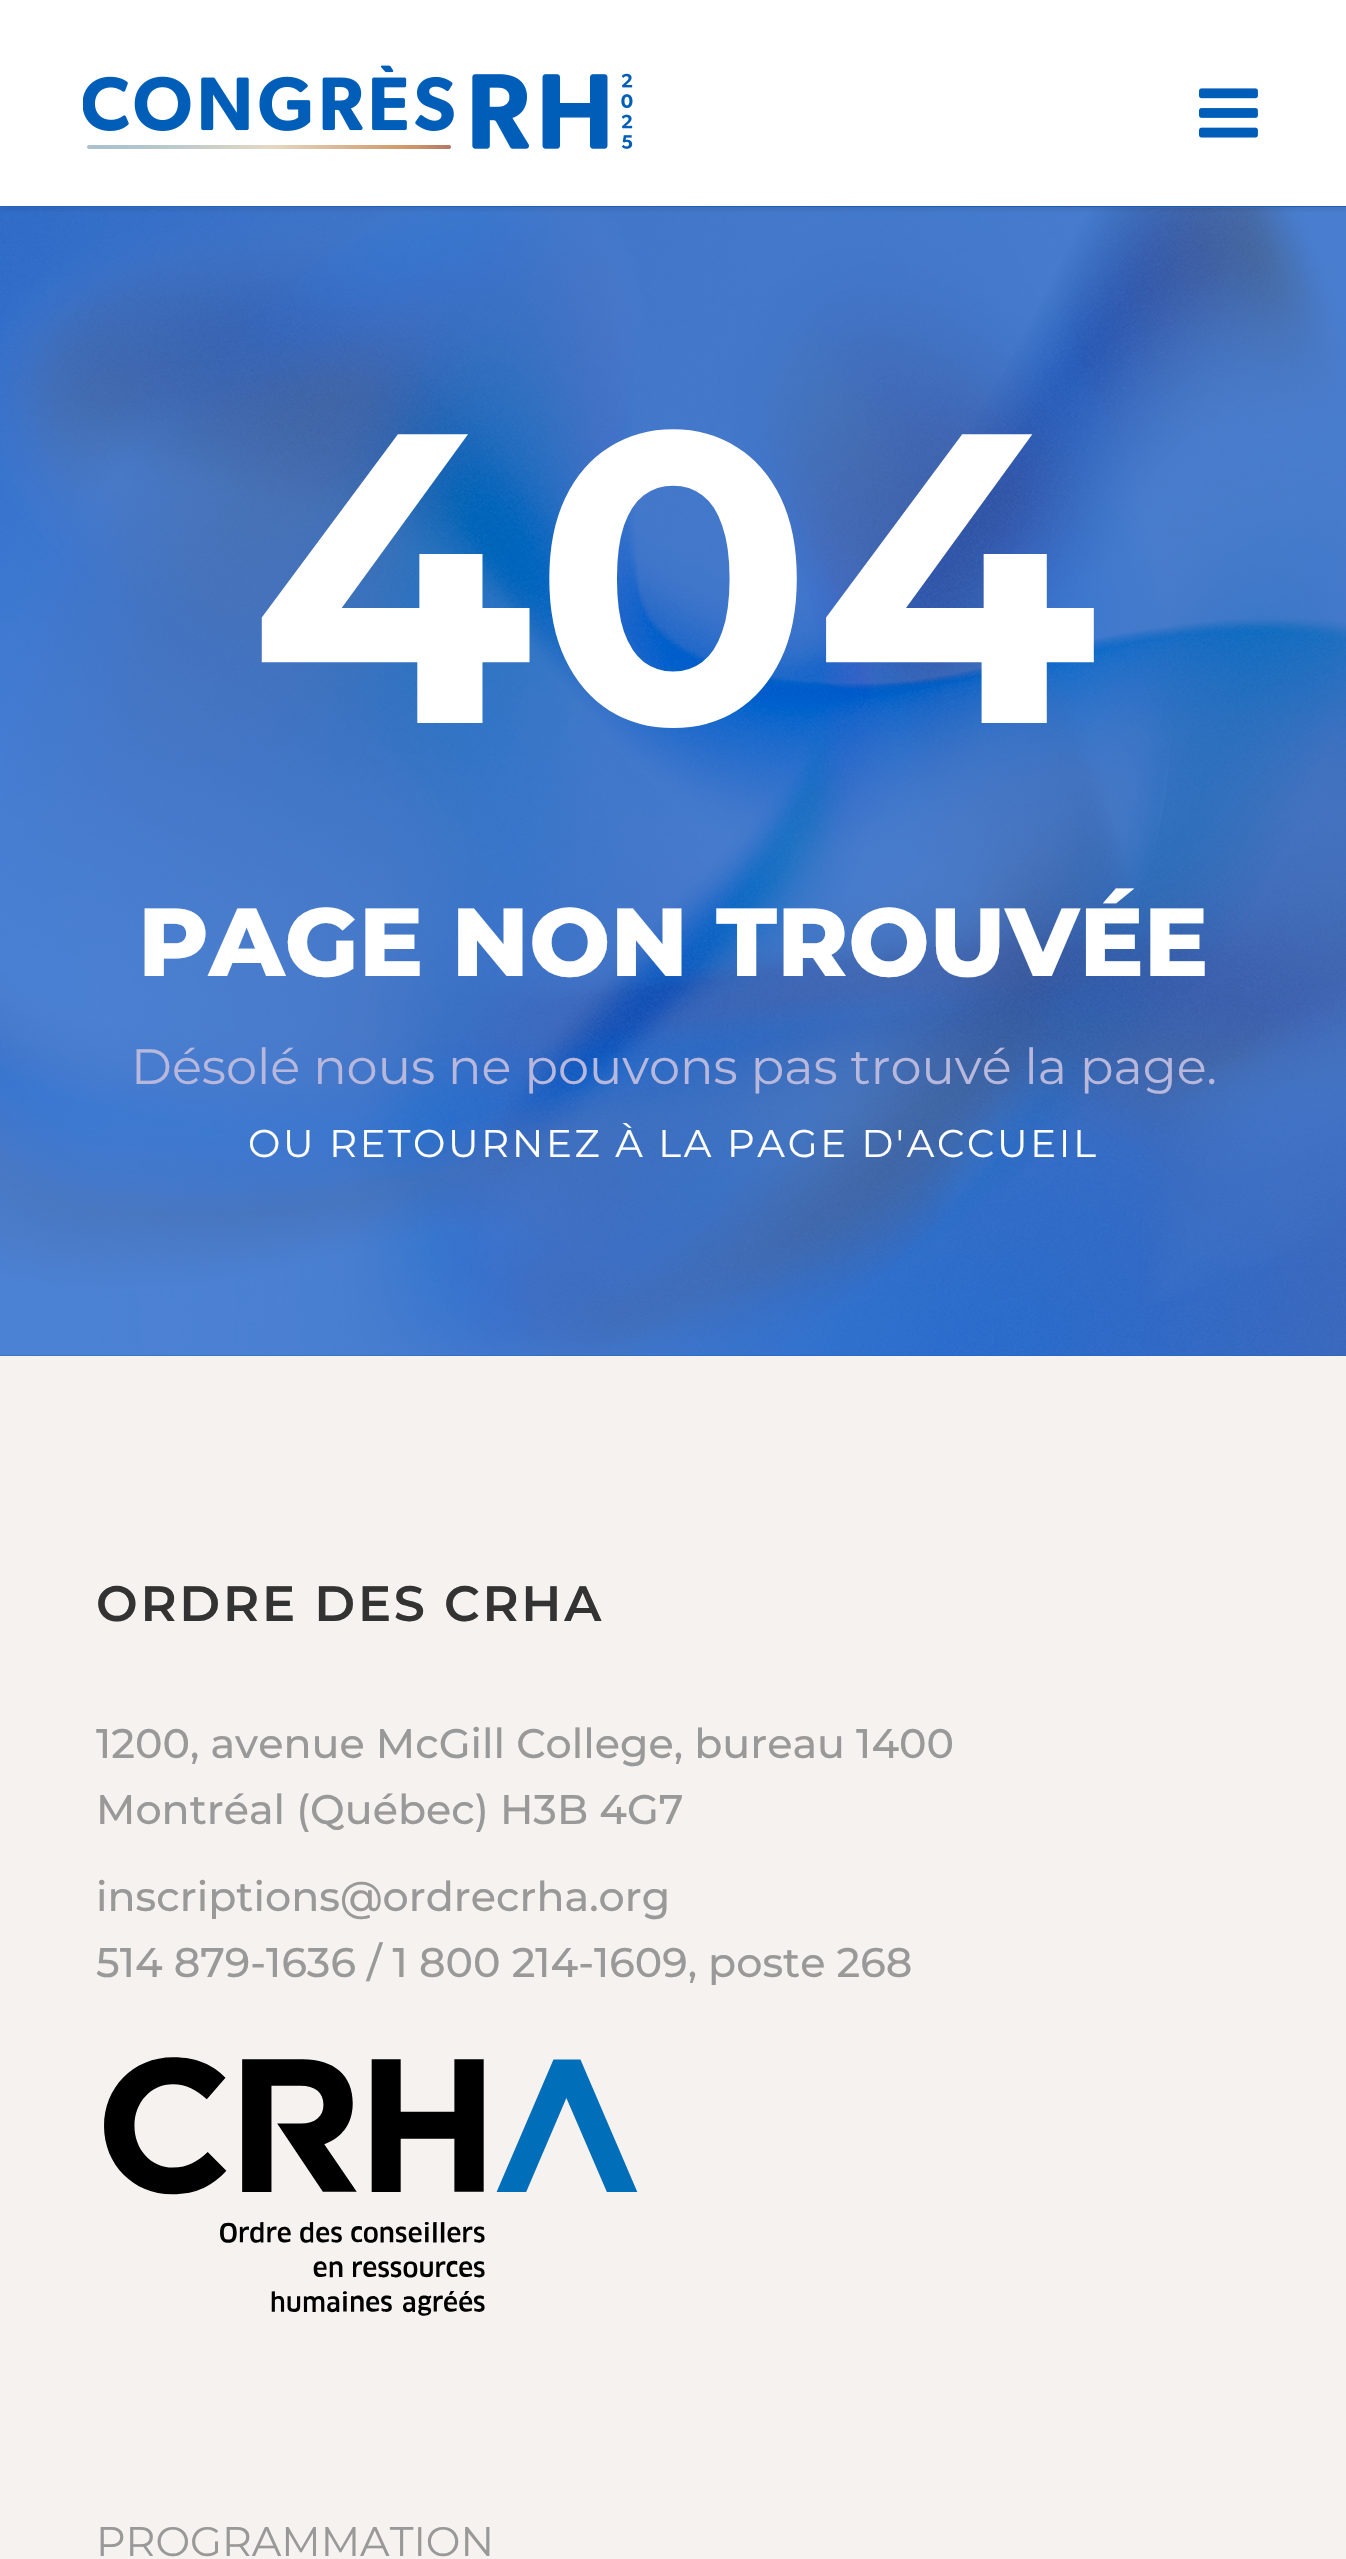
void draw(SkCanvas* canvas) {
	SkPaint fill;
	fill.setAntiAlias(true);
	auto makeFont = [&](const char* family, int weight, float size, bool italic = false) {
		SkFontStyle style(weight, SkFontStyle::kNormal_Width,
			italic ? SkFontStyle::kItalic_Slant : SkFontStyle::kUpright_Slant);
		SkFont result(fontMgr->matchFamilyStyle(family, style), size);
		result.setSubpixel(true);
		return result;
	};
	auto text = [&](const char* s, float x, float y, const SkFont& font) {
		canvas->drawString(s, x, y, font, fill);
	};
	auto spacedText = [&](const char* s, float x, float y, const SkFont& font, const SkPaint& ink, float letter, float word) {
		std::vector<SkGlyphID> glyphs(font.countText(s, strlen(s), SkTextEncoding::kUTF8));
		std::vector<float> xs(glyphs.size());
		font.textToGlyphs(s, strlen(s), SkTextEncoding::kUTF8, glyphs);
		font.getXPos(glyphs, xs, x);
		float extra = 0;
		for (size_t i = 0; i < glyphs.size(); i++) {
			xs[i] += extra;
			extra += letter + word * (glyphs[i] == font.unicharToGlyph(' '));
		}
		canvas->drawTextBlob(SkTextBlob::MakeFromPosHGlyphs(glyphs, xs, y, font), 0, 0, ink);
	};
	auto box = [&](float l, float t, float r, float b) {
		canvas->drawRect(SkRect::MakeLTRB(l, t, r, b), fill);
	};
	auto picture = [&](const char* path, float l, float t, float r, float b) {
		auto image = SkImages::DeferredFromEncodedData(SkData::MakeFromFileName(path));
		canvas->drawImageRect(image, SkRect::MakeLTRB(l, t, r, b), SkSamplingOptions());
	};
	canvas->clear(0xFFFFFFFF);
	fill.setColor(0xFF004EC8);
	box(0, 206, 1346, 1356);
	picture("image2.png", 0, 206, 1346, 1356);
	canvas->save();
	canvas->clipRect(SkRect::MakeLTRB(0, 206, 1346, 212));
	fill.setColor(0x1A000000);
	fill.setMaskFilter(SkMaskFilter::MakeBlur(kNormal_SkBlurStyle, 3));
	canvas->drawRect(SkRect::MakeLTRB(0, 3, 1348, 209), fill);
	fill.setMaskFilter(nullptr);
	canvas->restore();
	picture("image0.png", 83, 65, 633, 149);
	picture("image1.png", 1199, 88, 1258, 138);
	fill.setColor(0xFFF6F2EF);
	box(0, 1356, 1346, 2559);
	picture("image3.png", 104, 2057, 638, 2316);
	auto font1 = makeFont("Montserrat", 700, 412.5f);
	fill.setColor(0xFFFFFFFF);
	text("404", 249, 723, font1);
	auto font2 = makeFont("Montserrat", 800, 96.25f);
	text("PAGE NON TROUVÉE", 138, 976, font2);
	auto font3 = makeFont("Montserrat", 400, 49.5f);
	fill.setColor(0xFFB8B8DD);
	text("Désolé nous ne pouvons pas trouvé la page.", 131, 1084, font3);
	auto font4 = makeFont("Montserrat", 400, 38.5f);
	fill.setColor(0xFFFFFFFF);
	spacedText("OU RETOURNEZ À LA PAGE D'ACCUEIL", 248, 1157, font4, fill, 2.75f, 0);
	auto font5 = makeFont("Montserrat", 600, 49.5f);
	fill.setColor(0xFF333333);
	spacedText("ORDRE DES CRHA", 96, 1621, font5, fill, 2.75f, 0);
	auto font6 = makeFont("Montserrat", 500, 41.25f);
	fill.setColor(0xFF999999);
	text("1200, avenue McGill College, bureau 1400", 96, 1758, font6);
	text("Montréal (Québec) H3B 4G7", 96, 1824, font6);
	text("inscriptions@ordrecrha.org", 96, 1911, font6);
	text("514 879-1636 / 1 800 214-1609, poste 268", 96, 1977, font6);
	auto font7 = makeFont("Montserrat", 400, 41.25f);
	text("PROGRAMMATION", 96, 2556, font7);
}
